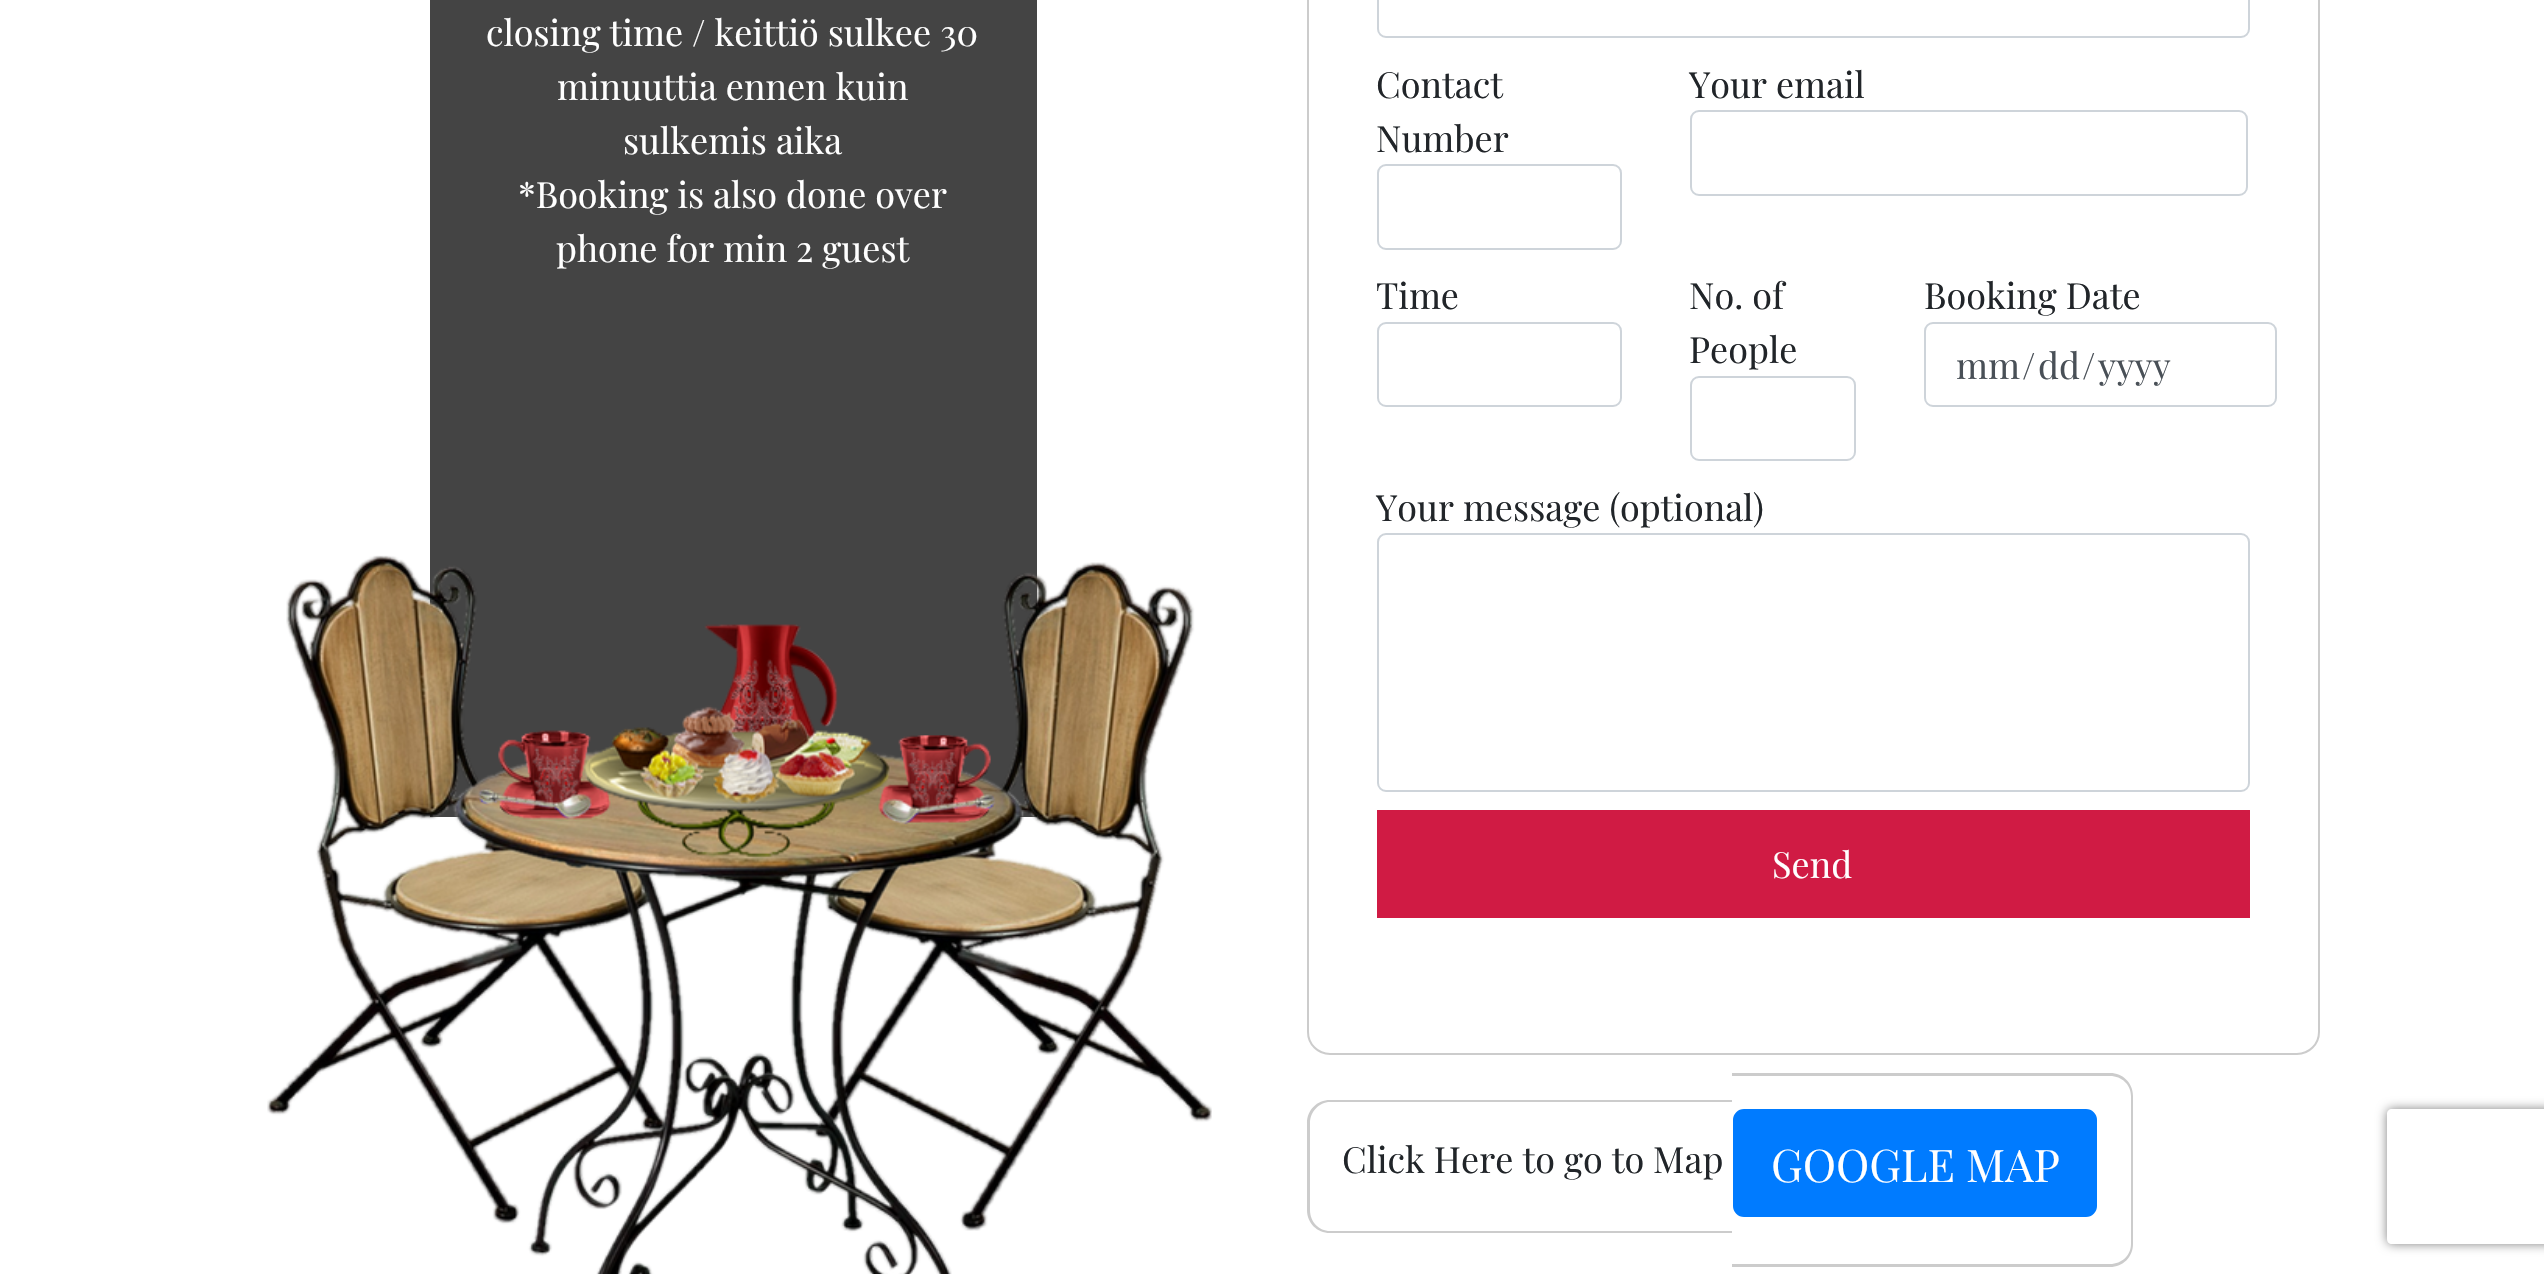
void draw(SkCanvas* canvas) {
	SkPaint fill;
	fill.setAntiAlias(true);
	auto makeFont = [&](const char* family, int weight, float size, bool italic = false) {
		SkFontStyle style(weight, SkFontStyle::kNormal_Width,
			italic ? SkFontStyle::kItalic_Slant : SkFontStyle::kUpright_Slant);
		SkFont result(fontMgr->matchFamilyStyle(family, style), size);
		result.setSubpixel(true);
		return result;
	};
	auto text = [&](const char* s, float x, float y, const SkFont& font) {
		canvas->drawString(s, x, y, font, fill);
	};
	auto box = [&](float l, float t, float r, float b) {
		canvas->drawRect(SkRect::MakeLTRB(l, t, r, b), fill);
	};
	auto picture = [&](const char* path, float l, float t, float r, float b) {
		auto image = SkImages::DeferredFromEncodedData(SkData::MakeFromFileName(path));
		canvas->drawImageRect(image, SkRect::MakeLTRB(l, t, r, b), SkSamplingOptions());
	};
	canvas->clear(0xFFFFFFFF);
	fill.setColor(0xFF444444);
	box(430, 0, 1037, 817);
	picture("image0.png", 267, 555, 1212, 1274);
	fill.setStyle(SkPaint::kStroke_Style);
	fill.setStrokeWidth(2);
	fill.setColor(0xFFCCCCCC);
	canvas->drawRoundRect(SkRect::MakeLTRB(1308, -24, 2319, 1054), 22, 22, fill);
	fill.setColor(0xFFCED4DA);
	canvas->drawRoundRect(SkRect::MakeLTRB(1378, -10, 2249, 37), 8, 8, fill);
	canvas->drawRoundRect(SkRect::MakeLTRB(1378, 165, 1621, 249), 8, 8, fill);
	canvas->drawRoundRect(SkRect::MakeLTRB(1691, 111, 2247, 195), 8, 8, fill);
	canvas->drawRoundRect(SkRect::MakeLTRB(1378, 323, 1621, 406), 8, 8, fill);
	canvas->drawRoundRect(SkRect::MakeLTRB(1691, 377, 1855, 460), 8, 8, fill);
	canvas->drawRoundRect(SkRect::MakeLTRB(1925, 323, 2276, 406), 8, 8, fill);
	canvas->drawRoundRect(SkRect::MakeLTRB(1378, 534, 2249, 791), 8, 8, fill);
	fill.setStyle(SkPaint::kFill_Style);
	fill.setColor(0xFFD01B44);
	box(1377, 810, 2250, 918);
	fill.setColor(0xFFCCCCCC);
	canvas->drawPath(SkPathBuilder(SkPathFillType::kEvenOdd).moveTo(1330, 1100).lineTo(1732, 1100).lineTo(1732, 1233).lineTo(1330, 1233).cubicTo(1317, 1233, 1307, 1223, 1307, 1210).lineTo(1307, 1123).cubicTo(1307, 1110, 1317, 1100, 1330, 1100).close().moveTo(1330, 1102).lineTo(1732, 1102).lineTo(1732, 1231).lineTo(1330, 1231).cubicTo(1319, 1231, 1310, 1222, 1310, 1210).lineTo(1310, 1123).cubicTo(1310, 1112, 1319, 1102, 1330, 1102).close().detach(), fill);
	canvas->drawPath(SkPathBuilder(SkPathFillType::kEvenOdd).moveTo(1732, 1073).lineTo(2110, 1073).cubicTo(2123, 1073, 2133, 1083, 2133, 1096).lineTo(2133, 1244).cubicTo(2133, 1257, 2123, 1267, 2110, 1267).lineTo(1732, 1267).close().moveTo(1732, 1076).lineTo(2110, 1076).cubicTo(2122, 1076, 2131, 1085, 2131, 1096).lineTo(2131, 1244).cubicTo(2131, 1255, 2122, 1264, 2110, 1264).lineTo(1732, 1264).close().detach(), fill);
	fill.setColor(0xFF007BFF);
	canvas->drawRoundRect(SkRect::MakeLTRB(1734, 1110, 2096, 1216), 10, 10, fill);
	fill.setStyle(SkPaint::kStroke_Style);
	canvas->drawRoundRect(SkRect::MakeLTRB(1734, 1110, 2096, 1216), 10, 10, fill);
	canvas->save();
	canvas->clipPath(SkPathBuilder(SkPathFillType::kEvenOdd).moveTo(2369, 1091).lineTo(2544, 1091).lineTo(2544, 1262).lineTo(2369, 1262).close().moveTo(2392, 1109).lineTo(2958, 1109).cubicTo(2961, 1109, 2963, 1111, 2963, 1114).lineTo(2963, 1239).cubicTo(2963, 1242, 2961, 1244, 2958, 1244).lineTo(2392, 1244).cubicTo(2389, 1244, 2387, 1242, 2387, 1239).lineTo(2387, 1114).cubicTo(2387, 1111, 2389, 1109, 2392, 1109).close().detach(), true);
	fill.setStyle(SkPaint::kFill_Style);
	fill.setColor(0xFF808080);
	fill.setMaskFilter(SkMaskFilter::MakeBlur(kNormal_SkBlurStyle, 5.5f));
	canvas->drawRoundRect(SkRect::MakeLTRB(2387, 1109, 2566, 1244), 5, 5, fill);
	fill.setMaskFilter(nullptr);
	canvas->restore();
	auto font1 = makeFont("Playfair Display", 400, 36);
	fill.setColor(0xFFFFFFFF);
	text("closing time / keittiö sulkee 30", 486, 46, font1);
	text("minuuttia ennen kuin", 557, 100, font1);
	text("sulkemis aika", 623, 154, font1);
	text("*Booking is also done over", 518, 208, font1);
	text("phone for min 2 guest", 556, 262, font1);
	fill.setColor(0xFF212529);
	text("Contact", 1376, 98, font1);
	text("Number", 1376, 152, font1);
	text("Your email", 1689, 98, font1);
	text("Time", 1376, 309, font1);
	text("No. of", 1689, 309, font1);
	text("People", 1689, 363, font1);
	text("Booking Date", 1924, 309, font1);
	fill.setColor(0xFF495057);
	text("mm", 1956, 379, font1);
	text("/", 2022, 379, font1);
	text("dd", 2038, 379, font1);
	text("/", 2082, 379, font1);
	text("yyyy", 2098, 379, font1);
	fill.setColor(0xFF212529);
	text("Your message (optional)", 1376, 521, font1);
	fill.setColor(0xFFFFFFFF);
	text("Send", 1772, 878, font1);
	fill.setColor(0xFF212529);
	text("Click Here to go to Map", 1342, 1173, font1);
	auto font2 = makeFont("Playfair Display", 400, 45);
	fill.setColor(0xFFFFFFFF);
	text("GOOGLE MAP", 1771, 1182, font2);
}
